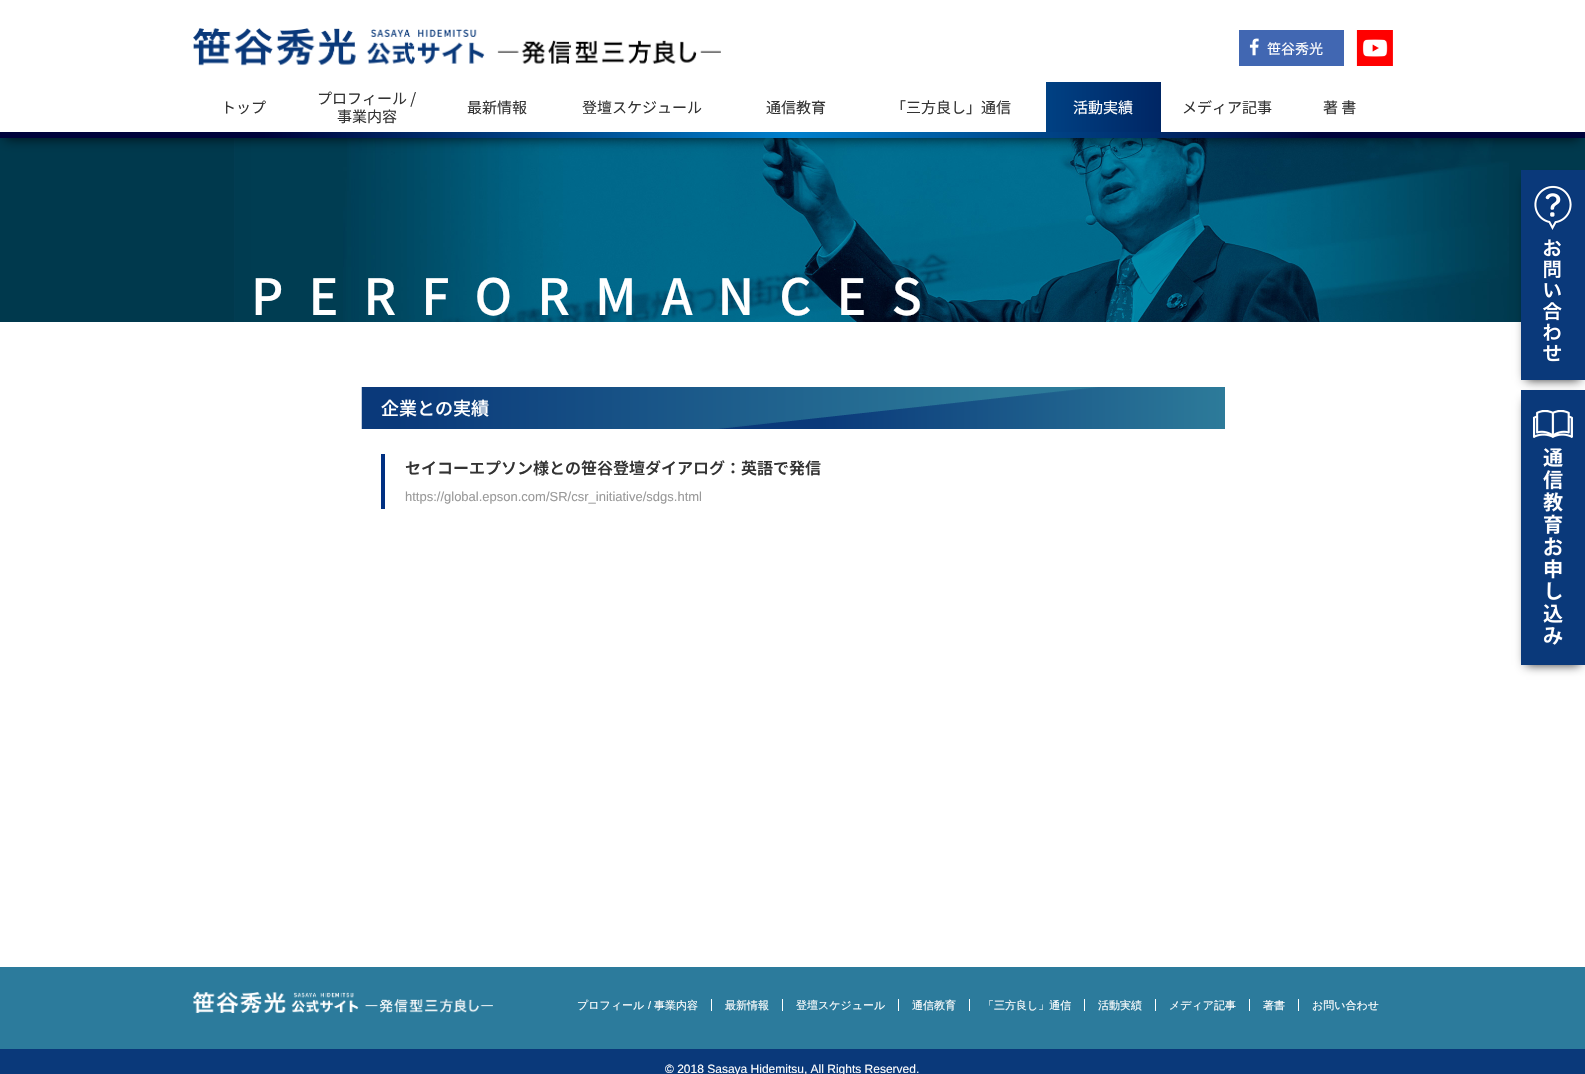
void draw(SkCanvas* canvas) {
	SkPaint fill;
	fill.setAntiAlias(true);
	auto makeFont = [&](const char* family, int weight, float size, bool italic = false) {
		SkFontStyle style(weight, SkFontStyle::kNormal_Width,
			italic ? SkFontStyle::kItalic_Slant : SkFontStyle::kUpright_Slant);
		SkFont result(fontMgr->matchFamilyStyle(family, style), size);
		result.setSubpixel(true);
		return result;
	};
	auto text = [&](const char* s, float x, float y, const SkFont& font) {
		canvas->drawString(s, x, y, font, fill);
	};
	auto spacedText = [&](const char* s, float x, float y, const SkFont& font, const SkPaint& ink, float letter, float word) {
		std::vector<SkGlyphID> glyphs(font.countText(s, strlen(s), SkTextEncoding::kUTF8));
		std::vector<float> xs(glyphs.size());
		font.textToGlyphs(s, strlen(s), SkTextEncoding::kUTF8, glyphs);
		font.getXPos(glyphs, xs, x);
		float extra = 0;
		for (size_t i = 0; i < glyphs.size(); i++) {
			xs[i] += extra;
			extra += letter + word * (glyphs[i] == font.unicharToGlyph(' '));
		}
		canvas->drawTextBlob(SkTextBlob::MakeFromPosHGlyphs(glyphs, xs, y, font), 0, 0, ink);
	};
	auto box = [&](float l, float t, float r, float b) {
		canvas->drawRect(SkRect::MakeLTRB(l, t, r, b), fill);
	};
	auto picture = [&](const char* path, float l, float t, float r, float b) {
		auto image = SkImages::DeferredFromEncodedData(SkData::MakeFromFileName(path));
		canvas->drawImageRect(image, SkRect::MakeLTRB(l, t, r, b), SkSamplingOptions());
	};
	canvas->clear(0xFFFFFFFF);
	fill.setColor(0xFF00394D);
	box(0, 138, 1585, 322);
	picture("image5.png", 234, 138, 1509, 322);
	fill.setColor(0xCC000000);
	fill.setMaskFilter(SkMaskFilter::MakeBlur(kNormal_SkBlurStyle, 6));
	canvas->drawRect(SkRect::MakeLTRB(5, 10, 1580, 138), fill);
	fill.setMaskFilter(nullptr);
	fill.setColor(0xFFFFFFFF);
	box(0, 0, 1585, 132);
	picture("image0.png", 0, 132, 1585, 138);
	picture("image1.png", 193, 28, 721, 66);
	fill.setColor(0xFF4167B2);
	box(1239, 30, 1344, 66);
	picture("image2.png", 1249, 38, 1259, 56);
	picture("image3.png", 1356, 30, 1393, 66);
	picture("image4.png", 1046, 82, 1161, 132);
	fill.setColor(0xCC000000);
	fill.setMaskFilter(SkMaskFilter::MakeBlur(kNormal_SkBlurStyle, 5));
	canvas->drawRect(SkRect::MakeLTRB(1526, 180, 1580, 380), fill);
	fill.setMaskFilter(nullptr);
	picture("image6.png", 1521, 170, 1585, 380);
	fill.setMaskFilter(SkMaskFilter::MakeBlur(kNormal_SkBlurStyle, 5));
	canvas->drawRect(SkRect::MakeLTRB(1526, 400, 1580, 665), fill);
	fill.setMaskFilter(nullptr);
	picture("image7.png", 1521, 390, 1585, 665);
	picture("image8.png", 361, 387, 1225, 429);
	fill.setColor(0xFF003082);
	box(381, 454, 385, 509);
	fill.setColor(0xFF2C7B9C);
	box(0, 967, 1585, 1049);
	picture("image9.png", 193, 992, 493, 1013);
	fill.setColor(0xFFFFFFFF);
	box(711, 999, 712, 1011);
	box(782, 999, 783, 1011);
	box(898, 999, 899, 1011);
	box(969, 999, 970, 1011);
	box(1084, 999, 1085, 1011);
	box(1155, 999, 1156, 1011);
	box(1249, 999, 1250, 1011);
	box(1298, 999, 1299, 1011);
	fill.setColor(0xFF0A397A);
	box(0, 1049, 1585, 1074);
	auto font1 = makeFont("Noto Sans JP", 400, 14);
	fill.setColor(0xFFFFFFFF);
	text("笹谷秀光", 1267, 54, font1);
	auto font2 = makeFont("Noto Sans JP", 400, 15);
	fill.setColor(0xFF333333);
	text("トップ", 221, 113, font2);
	text("プロフィール /", 317, 104, font2);
	text("事業内容", 337, 122, font2);
	text("最新情報", 467, 113, font2);
	text("登壇スケジュール", 582, 113, font2);
	text("通信教育", 766, 113, font2);
	text("「三方良し」通信", 891, 113, font2);
	fill.setColor(0xFFFFFFFF);
	text("活動実績", 1073, 113, font2);
	fill.setColor(0xFF333333);
	text("メディア記事", 1182, 113, font2);
	text("著 書", 1323, 113, font2);
	auto font3 = makeFont("Noto Sans JP", 500, 50);
	fill.setColor(0xFFFFFFFF);
	spacedText("PERFORMANCES", 251, 315, font3, fill, 25, 0);
	auto font4 = makeFont("Noto Sans JP", 500, 18);
	text("企業との実績", 381, 415, font4);
	auto font5 = makeFont("Noto Sans JP", 600, 16);
	fill.setColor(0xFF333333);
	text("セイコーエプソン様との笹谷登壇ダイアログ：英語で発信", 405, 474, font5);
	auto font6 = makeFont("Liberation Sans", 400, 13);
	fill.setColor(0xFF999999);
	text("https://global.epson.com/SR/csr_initiative/sdgs.html", 405, 501, font6);
	auto font7 = makeFont("WenQuanYi Zen Hei", 500, 11);
	fill.setColor(0xFFFFFFFF);
	text("プロフィール", 577, 1009, font7);
	auto font8 = makeFont("Liberation Sans", 400, 11);
	text("/", 648, 1009, font8);
	text("事業内容", 654, 1009, font7);
	text("最新情報", 725, 1009, font7);
	text("登壇スケジュール", 796, 1009, font7);
	text("通信教育", 912, 1009, font7);
	text("「三方良し」通信", 983, 1009, font7);
	text("活動実績", 1098, 1009, font7);
	text("メディア記事", 1169, 1009, font7);
	text("著書", 1263, 1009, font7);
	text("お問い合わせ", 1312, 1009, font7);
	auto font9 = makeFont("Liberation Sans", 400, 12);
	text("© 2018 Sasaya Hidemitsu, All Rights Reserved.", 665, 1073, font9);
}
